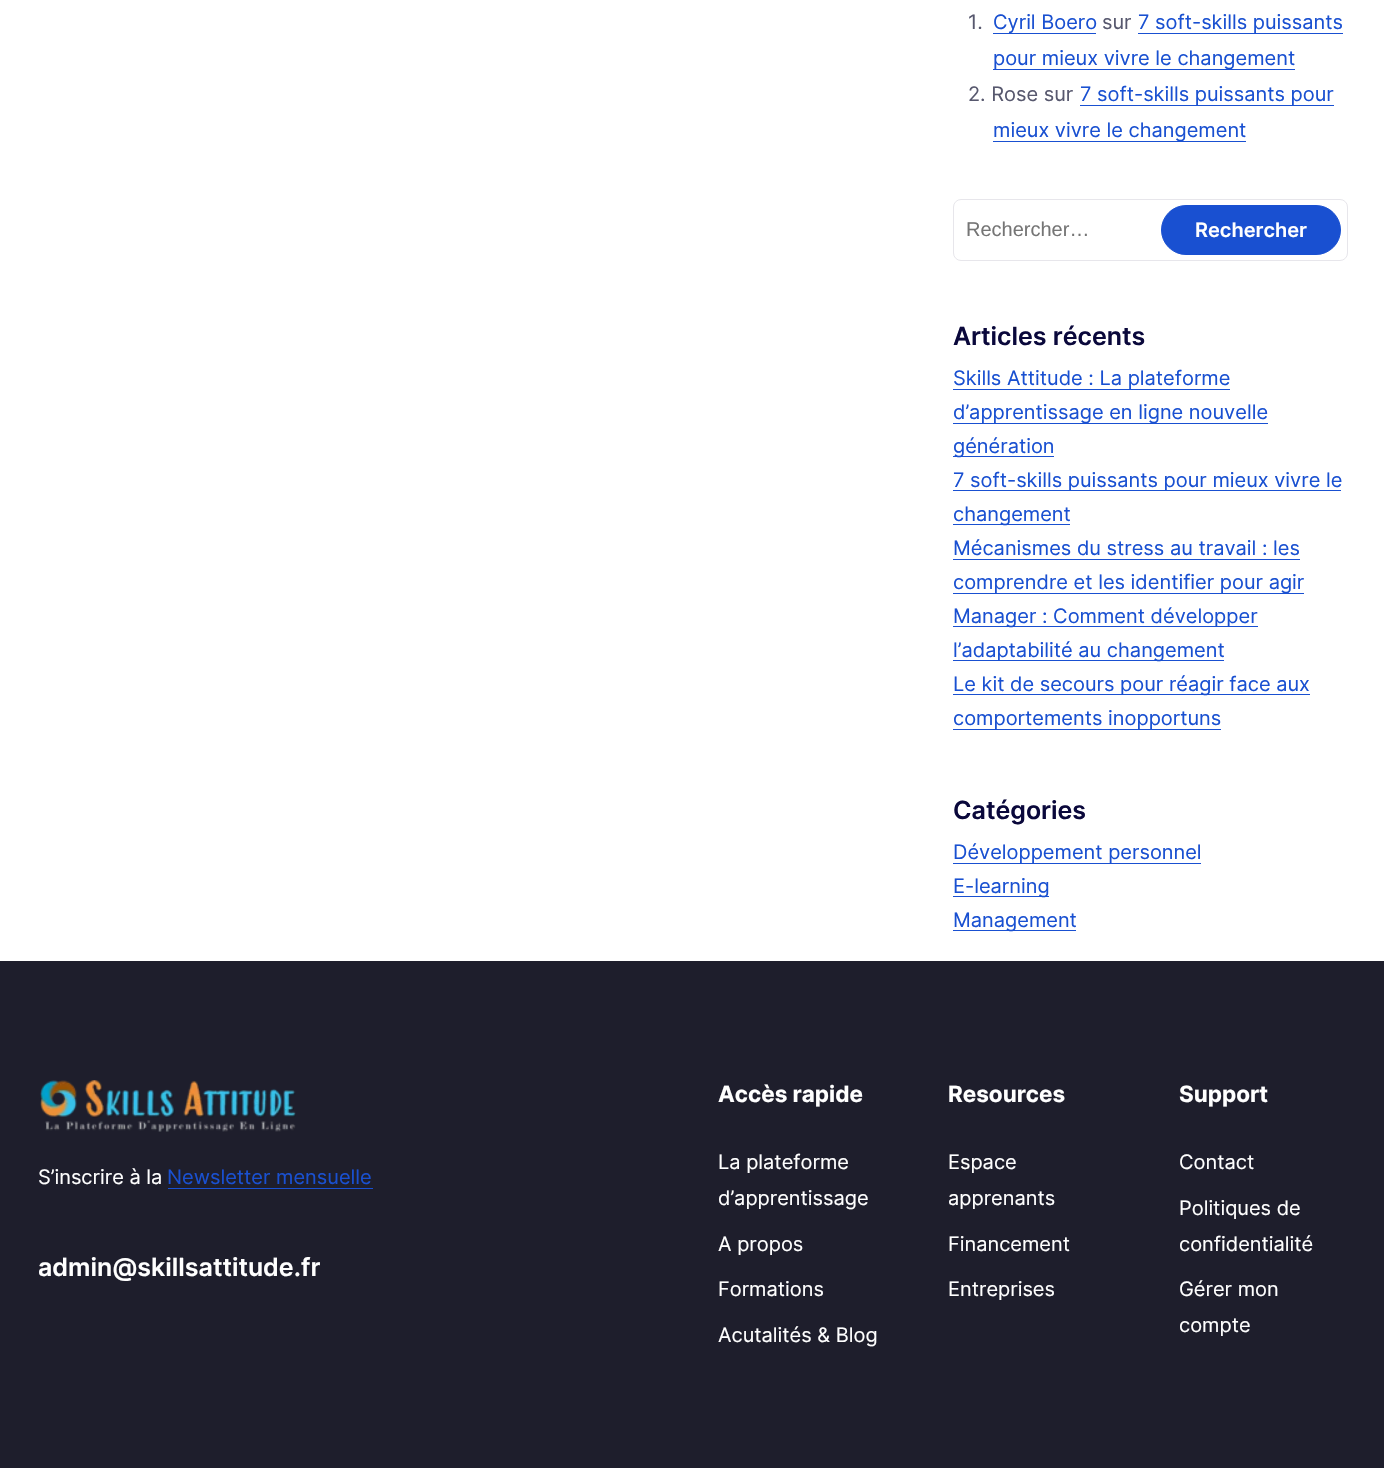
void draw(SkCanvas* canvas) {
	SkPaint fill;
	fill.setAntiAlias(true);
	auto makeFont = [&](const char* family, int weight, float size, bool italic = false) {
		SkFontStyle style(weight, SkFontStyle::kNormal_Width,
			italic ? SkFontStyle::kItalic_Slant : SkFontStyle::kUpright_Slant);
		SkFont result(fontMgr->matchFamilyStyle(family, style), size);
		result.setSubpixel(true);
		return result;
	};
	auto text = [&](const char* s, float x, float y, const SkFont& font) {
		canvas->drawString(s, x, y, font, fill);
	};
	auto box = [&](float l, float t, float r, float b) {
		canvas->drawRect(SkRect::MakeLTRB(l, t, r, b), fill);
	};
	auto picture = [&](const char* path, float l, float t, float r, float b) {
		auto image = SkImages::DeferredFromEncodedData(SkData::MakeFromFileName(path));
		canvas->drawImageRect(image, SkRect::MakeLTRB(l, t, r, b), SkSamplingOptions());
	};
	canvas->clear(0xFFFFFFFF);
	fill.setColor(0xFF1950D1);
	box(993, 33, 1096, 34);
	box(1138, 33, 1343, 34);
	box(993, 69, 1295, 70);
	box(1080, 105, 1334, 106);
	box(993, 141, 1246, 142);
	fill.setStyle(SkPaint::kStroke_Style);
	fill.setStrokeWidth(1);
	fill.setColor(0xFFE7E6EB);
	canvas->drawRoundRect(SkRect::MakeLTRB(953.5f, 199.5f, 1347.5f, 260.5f), 7.5f, 7.5f, fill);
	fill.setStyle(SkPaint::kFill_Style);
	fill.setColor(0xFF1950D1);
	canvas->drawRoundRect(SkRect::MakeLTRB(1161.5f, 205.5f, 1340.5f, 254.5f), 24.5f, 24.5f, fill);
	fill.setStyle(SkPaint::kStroke_Style);
	canvas->drawRoundRect(SkRect::MakeLTRB(1161.5f, 205.5f, 1340.5f, 254.5f), 24.5f, 24.5f, fill);
	fill.setStyle(SkPaint::kFill_Style);
	box(953, 389, 1230, 390);
	box(953, 423, 1268, 424);
	box(953, 456, 1054, 457);
	box(953, 490, 1341, 491);
	box(953, 524, 1070, 525);
	box(953, 559, 1300, 560);
	box(953, 593, 1304, 594);
	box(953, 626, 1258, 627);
	box(953, 660, 1224, 661);
	box(953, 694, 1310, 695);
	box(953, 729, 1221, 730);
	box(953, 863, 1201, 864);
	box(953, 896, 1049, 897);
	box(953, 930, 1076, 931);
	fill.setColor(0xFF1E1E2C);
	box(0, 961, 1384, 1468);
	picture("image0.png", 40, 1080, 296, 1132);
	fill.setColor(0xFF1950D1);
	box(168, 1188, 373, 1189);
	auto font1 = makeFont("Inter", 400, 20);
	fill.setColor(0xFF57586E);
	text("1.", 968, 29, font1);
	fill.setColor(0xFF1950D1);
	text("Cyril Boero", 993, 29, font1);
	fill.setColor(0xFF57586E);
	text("sur", 1102, 29, font1);
	fill.setColor(0xFF1950D1);
	text("7 soft-skills puissants", 1138, 29, font1);
	text("pour mieux vivre le changement", 993, 65, font1);
	text("7 soft-skills puissants pour", 1080, 101, font1);
	text("mieux vivre le changement", 993, 137, font1);
	fill.setColor(0xFF57586E);
	text("2. Rose sur", 968, 101, font1);
	auto font2 = makeFont("Liberation Sans", 400, 20);
	fill.setColor(0xFF757575);
	text("Rechercher…", 966, 236, font2);
	auto font3 = makeFont("Inter", 600, 20);
	fill.setColor(0xFFFFFFFF);
	text("Rechercher", 1195, 237, font3);
	auto font4 = makeFont("Inter", 600, 25);
	fill.setColor(0xFF0A083B);
	text("Articles récents", 953, 345, font4);
	fill.setColor(0xFF1950D1);
	text("Skills Attitude : La plateforme", 953, 385, font1);
	text("d’apprentissage en ligne nouvelle", 953, 419, font1);
	text("génération", 953, 453, font1);
	text("7 soft-skills puissants pour mieux vivre le", 953, 487, font1);
	text("changement", 953, 521, font1);
	text("Mécanismes du stress au travail : les", 953, 555, font1);
	text("comprendre et les identifier pour agir", 953, 589, font1);
	text("Manager : Comment développer", 953, 623, font1);
	text("l’adaptabilité au changement", 953, 657, font1);
	text("Le kit de secours pour réagir face aux", 953, 691, font1);
	text("comportements inopportuns", 953, 725, font1);
	fill.setColor(0xFF0A083B);
	text("Catégories", 953, 819, font4);
	fill.setColor(0xFF1950D1);
	text("Développement personnel", 953, 859, font1);
	text("E-learning", 953, 893, font1);
	text("Management", 953, 927, font1);
	fill.setColor(0xFFFFFFFF);
	text("S’inscrire à la", 38, 1184, font1);
	fill.setColor(0xFF1950D1);
	text("Newsletter mensuelle", 167, 1184, font1);
	fill.setColor(0xFFFFFFFF);
	text("admin@skillsattitude.fr", 38, 1276, font4);
	auto font5 = makeFont("Inter", 700, 22.5f);
	text("Accès rapide", 718, 1102, font5);
	text("La plateforme", 718, 1169, font1);
	text("d’apprentissage", 718, 1205, font1);
	text("A propos", 718, 1251, font1);
	text("Formations", 718, 1296, font1);
	text("Acutalités & Blog", 718, 1342, font1);
	text("Resources", 948, 1102, font5);
	text("Espace", 948, 1169, font1);
	text("apprenants", 948, 1205, font1);
	text("Financement", 948, 1251, font1);
	text("Entreprises", 948, 1296, font1);
	text("Support", 1179, 1102, font5);
	text("Contact", 1179, 1169, font1);
	text("Politiques de", 1179, 1215, font1);
	text("confidentialité", 1179, 1251, font1);
	text("Gérer mon", 1179, 1296, font1);
	text("compte", 1179, 1332, font1);
}
